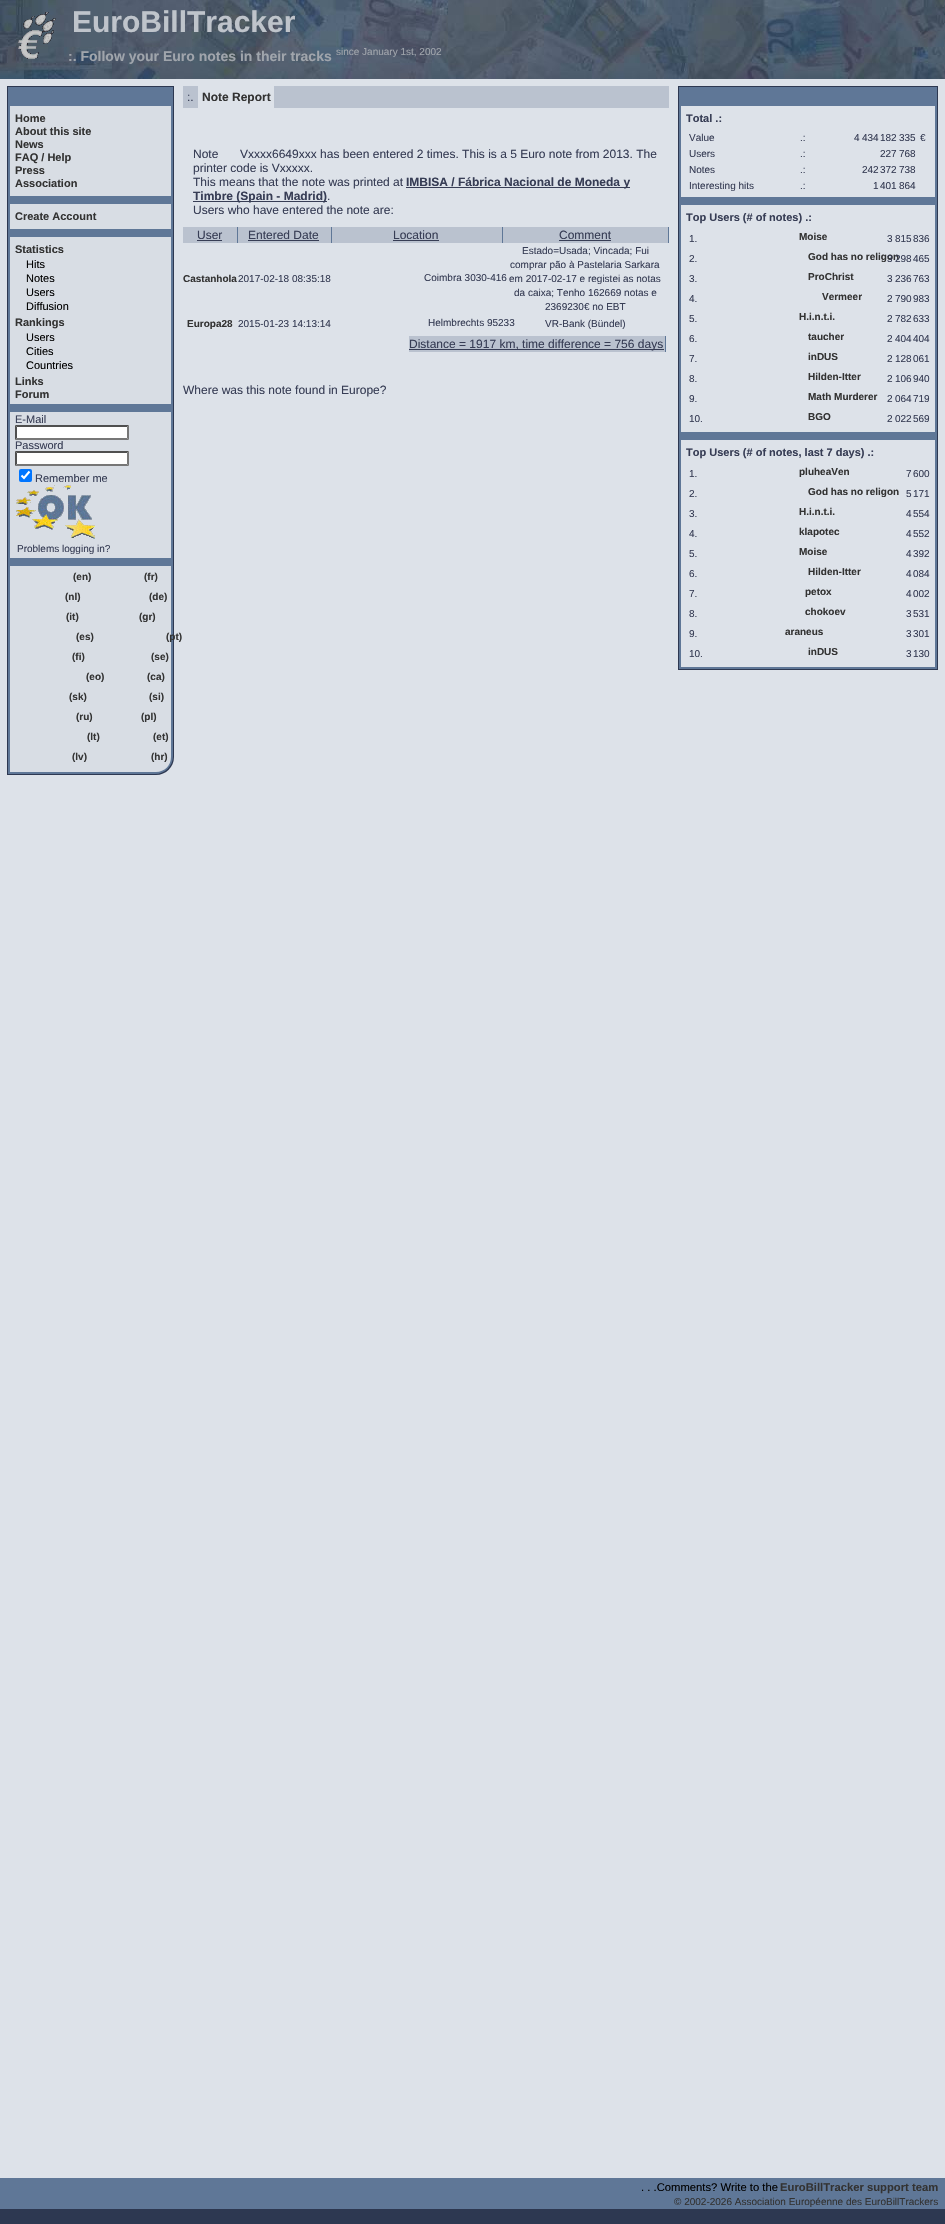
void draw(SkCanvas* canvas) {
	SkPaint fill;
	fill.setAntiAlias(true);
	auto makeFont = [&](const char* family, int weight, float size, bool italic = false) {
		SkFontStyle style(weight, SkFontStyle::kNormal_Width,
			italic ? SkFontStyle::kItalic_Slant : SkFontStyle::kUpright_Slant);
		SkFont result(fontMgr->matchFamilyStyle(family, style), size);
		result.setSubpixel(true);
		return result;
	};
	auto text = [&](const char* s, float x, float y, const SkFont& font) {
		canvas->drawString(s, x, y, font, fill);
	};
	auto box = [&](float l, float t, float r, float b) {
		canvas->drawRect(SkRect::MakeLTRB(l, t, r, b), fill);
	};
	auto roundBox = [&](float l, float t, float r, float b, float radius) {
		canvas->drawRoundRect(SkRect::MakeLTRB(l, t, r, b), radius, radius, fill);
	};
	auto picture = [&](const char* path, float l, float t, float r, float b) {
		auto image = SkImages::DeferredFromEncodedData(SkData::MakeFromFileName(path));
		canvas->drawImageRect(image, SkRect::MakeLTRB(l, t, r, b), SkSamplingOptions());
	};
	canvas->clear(0xFFDDE2E9);
	picture("image0.png", 0, 0, 945, 79);
	picture("image1.png", 18, 12, 56, 59);
	fill.setColor(0xFF2D3851);
	canvas->drawPath(SkPathBuilder().moveTo(7, 86).lineTo(174, 86).lineTo(174, 757).cubicTo(174, 767, 166, 775, 156, 775).lineTo(7, 775).close().detach(), fill);
	fill.setColor(0xFF5F7797);
	canvas->drawPath(SkPathBuilder().moveTo(8, 87).lineTo(173, 87).lineTo(173, 756).cubicTo(173, 766, 165, 774, 155, 774).lineTo(8, 774).close().detach(), fill);
	fill.setColor(0xFFD8DDE4);
	box(10, 106, 171, 196);
	box(10, 204, 171, 229);
	box(10, 237, 171, 404);
	box(10, 412, 171, 558);
	fill.setColor(0xFFFEFEFE);
	box(15, 425, 129, 440);
	fill.setColor(0xFF4F4F4F);
	canvas->drawPath(SkPathBuilder().moveTo(15, 425).lineTo(129, 425).lineTo(127, 427).lineTo(17, 427).close().detach(), fill);
	fill.setColor(0xFF767676);
	canvas->drawPath(SkPathBuilder().moveTo(129, 425).lineTo(129, 440).lineTo(127, 438).lineTo(127, 427).close().detach(), fill);
	canvas->drawPath(SkPathBuilder().moveTo(129, 440).lineTo(15, 440).lineTo(17, 438).lineTo(127, 438).close().detach(), fill);
	fill.setColor(0xFF4F4F4F);
	canvas->drawPath(SkPathBuilder().moveTo(15, 440).lineTo(15, 425).lineTo(17, 427).lineTo(17, 438).close().detach(), fill);
	fill.setColor(0xFFFEFEFE);
	box(15, 451, 129, 466);
	fill.setColor(0xFF4F4F4F);
	canvas->drawPath(SkPathBuilder().moveTo(15, 451).lineTo(129, 451).lineTo(127, 453).lineTo(17, 453).close().detach(), fill);
	fill.setColor(0xFF767676);
	canvas->drawPath(SkPathBuilder().moveTo(129, 451).lineTo(129, 466).lineTo(127, 464).lineTo(127, 453).close().detach(), fill);
	canvas->drawPath(SkPathBuilder().moveTo(129, 466).lineTo(15, 466).lineTo(17, 464).lineTo(127, 464).close().detach(), fill);
	fill.setColor(0xFF4F4F4F);
	canvas->drawPath(SkPathBuilder().moveTo(15, 466).lineTo(15, 451).lineTo(17, 453).lineTo(17, 464).close().detach(), fill);
	fill.setColor(0xFF0075FF);
	roundBox(19, 469, 32, 482, 2);
	fill.setStyle(SkPaint::kStroke_Style);
	fill.setStrokeWidth(2.1f);
	fill.setColor(0xFFFFFFFF);
	canvas->drawPath(SkPathBuilder().moveTo(21.5f, 475.5f).lineTo(24, 478).lineTo(29.5f, 471.5f).detach(), fill);
	picture("image2.png", 16, 485, 95, 539);
	fill.setStyle(SkPaint::kFill_Style);
	fill.setColor(0xFFD8DDE4);
	canvas->drawPath(SkPathBuilder().moveTo(10, 566).lineTo(171, 566).lineTo(171, 757).cubicTo(171, 765.5f, 164.5f, 772, 156, 772).lineTo(10, 772).close().detach(), fill);
	fill.setColor(0xFFBAC2CF);
	box(183, 86, 198, 108);
	box(274, 86, 669, 108);
	fill.setColor(0xFF373D55);
	box(406, 187, 630, 188);
	box(193, 201, 327, 202);
	fill.setColor(0xFFBAC2CF);
	box(183, 227, 237, 243);
	fill.setColor(0xFF5F7797);
	box(237, 227, 238, 243);
	fill.setColor(0xFF373D55);
	box(197, 240, 222, 241);
	fill.setColor(0xFFBAC2CF);
	box(238, 227, 331, 243);
	fill.setColor(0xFF5F7797);
	box(331, 227, 332, 243);
	fill.setColor(0xFF373D55);
	box(248, 240, 319, 241);
	fill.setColor(0xFFBAC2CF);
	box(332, 227, 502, 243);
	fill.setColor(0xFF5F7797);
	box(502, 227, 503, 243);
	fill.setColor(0xFF373D55);
	box(393, 240, 439, 241);
	fill.setColor(0xFFBAC2CF);
	box(503, 227, 668, 243);
	fill.setColor(0xFF5F7797);
	box(668, 227, 669, 243);
	fill.setColor(0xFF373D55);
	box(559, 240, 611, 241);
	fill.setColor(0xFFBAC2CF);
	box(409, 336, 665, 352);
	fill.setColor(0xFF5F7797);
	box(665, 336, 666, 352);
	fill.setColor(0xFF373D55);
	box(409, 349, 664, 350);
	fill.setColor(0xFF2D3851);
	box(678, 86, 938, 670);
	fill.setColor(0xFF5F7797);
	box(679, 87, 937, 669);
	fill.setColor(0xFFDDE2E9);
	box(681, 106, 935, 197);
	box(681, 205, 935, 432);
	box(681, 440, 935, 667);
	fill.setColor(0xFF5F7797);
	box(0, 2178, 945, 2209);
	fill.setColor(0xFF2D3851);
	box(0, 2209, 945, 2224);
	auto font1 = makeFont("Liberation Sans", 700, 30);
	fill.setColor(0xFFBFC4CB);
	text("EuroBillTracker", 72, 32, font1);
	auto font2 = makeFont("Liberation Sans", 700, 14);
	fill.setColor(0xFFA0A5AC);
	text(":. Follow your Euro notes in their tracks", 68, 61, font2);
	auto font3 = makeFont("Liberation Sans", 400, 10);
	text("since January 1st, 2002", 336, 55, font3);
	auto font4 = makeFont("Liberation Sans", 700, 11);
	fill.setColor(0xFF333333);
	text("Home", 15, 122, font4);
	text("About this site", 15, 135, font4);
	text("News", 15, 148, font4);
	text("FAQ / Help", 15, 161, font4);
	text("Press", 15, 174, font4);
	text("Association", 15, 187, font4);
	text("Create Account", 15, 220, font4);
	text("Statistics", 15, 253, font4);
	auto font5 = makeFont("Liberation Sans", 400, 11);
	fill.setColor(0xFF000000);
	text("Hits", 26, 268, font5);
	text("Notes", 26, 282, font5);
	text("Users", 26, 296, font5);
	text("Diffusion", 26, 310, font5);
	fill.setColor(0xFF333333);
	text("Rankings", 15, 326, font4);
	fill.setColor(0xFF000000);
	text("Users", 26, 341, font5);
	text("Cities", 26, 355, font5);
	text("Countries", 26, 369, font5);
	fill.setColor(0xFF333333);
	text("Links", 15, 385, font4);
	text("Forum", 15, 398, font4);
	fill.setColor(0xFF373D55);
	text("E-Mail", 15, 423, font5);
	text("Password", 15, 449, font5);
	text("Remember me", 35, 482, font5);
	text("Problems logging in?", 17, 552, font3);
	auto font6 = makeFont("Liberation Sans", 700, 10);
	fill.setColor(0xFF333333);
	text("(en)", 73, 580, font6);
	text("(fr)", 144, 580, font6);
	text("(nl)", 65, 600, font6);
	text("(de)", 149, 600, font6);
	text("(it)", 66, 620, font6);
	text("(gr)", 139, 620, font6);
	text("(es)", 76, 640, font6);
	text("(pt)", 166, 640, font6);
	text("(fi)", 72, 660, font6);
	text("(se)", 151, 660, font6);
	text("(eo)", 86, 680, font6);
	text("(ca)", 147, 680, font6);
	text("(sk)", 69, 700, font6);
	text("(si)", 149, 700, font6);
	text("(ru)", 76, 720, font6);
	text("(pl)", 141, 720, font6);
	text("(lt)", 87, 740, font6);
	text("(et)", 153, 740, font6);
	text("(lv)", 72, 760, font6);
	text("(hr)", 151, 760, font6);
	auto font7 = makeFont("Liberation Sans", 400, 12);
	fill.setColor(0xFF373D55);
	text(":.", 187, 101, font7);
	auto font8 = makeFont("Liberation Sans", 700, 12);
	fill.setColor(0xFF333333);
	text("Note Report", 202, 101, font8);
	fill.setColor(0xFF373D55);
	text("Note", 193, 158, font7);
	text("Vxxxx6649xxx has been entered 2 times. This is a 5 Euro note from 2013. The", 240, 158, font7);
	text("printer code is Vxxxxx.", 193, 172, font7);
	text("This means that the note was printed at", 193, 186, font7);
	text("IMBISA / Fábrica Nacional de Moneda y", 406, 186, font8);
	text("Timbre (Spain - Madrid)", 193, 200, font8);
	text(".", 327, 200, font7);
	text("Users who have entered the note are:", 193, 214, font7);
	text("User", 197, 239, font7);
	text("Entered Date", 248, 239, font7);
	text("Location", 393, 239, font7);
	text("Comment", 559, 239, font7);
	fill.setColor(0xFF333333);
	text("Castanhola", 183, 282, font6);
	fill.setColor(0xFF373D55);
	text("2017-02-18 08:35:18", 238, 282, font3);
	text("Coimbra 3030-416", 424, 281, font3);
	text("Estado=Usada; Vincada; Fui", 522, 254, font3);
	text("comprar pão à Pastelaria Sarkara", 510, 268, font3);
	text("em 2017-02-17 e registei as notas", 509, 282, font3);
	text("da caixa; Tenho 162669 notas e", 514, 296, font3);
	text("2369230€ no EBT", 545, 310, font3);
	fill.setColor(0xFF333333);
	text("Europa28", 187, 327, font6);
	fill.setColor(0xFF373D55);
	text("2015-01-23 14:13:14", 238, 327, font3);
	text("Helmbrechts 95233", 428, 326, font3);
	text("VR-Bank (Bündel)", 545, 327, font3);
	text("Distance = 1917 km, time difference = 756 days", 409, 348, font7);
	text("Where was this note found in Europe?", 183, 394, font7);
	text("Total .:", 686, 122, font4);
	text("Value", 689, 141, font3);
	text(".:", 800, 141, font3);
	text("4", 854, 141, font3);
	text("434", 862, 141, font3);
	text("182", 880, 141, font3);
	text("335", 899, 141, font3);
	text("€", 920, 141, font3);
	text("Users", 689, 157, font3);
	text(".:", 800, 157, font3);
	text("227", 880, 157, font3);
	text("768", 899, 157, font3);
	text("Notes", 689, 173, font3);
	text(".:", 800, 173, font3);
	text("242", 862, 173, font3);
	text("372", 880, 173, font3);
	text("738", 899, 173, font3);
	text("Interesting hits", 689, 189, font3);
	text(".:", 800, 189, font3);
	text("1", 873, 189, font3);
	text("401", 880, 189, font3);
	text("864", 899, 189, font3);
	text("Top Users (# of notes) .:", 686, 221, font4);
	text("1.", 689, 242, font3);
	fill.setColor(0xFF333333);
	text("Moise", 799, 240, font6);
	fill.setColor(0xFF373D55);
	text("3", 887, 242, font3);
	text("815", 895, 242, font3);
	text("836", 913, 242, font3);
	text("2.", 689, 262, font3);
	fill.setColor(0xFF333333);
	text("God has no religon", 808, 260, font6);
	fill.setColor(0xFF373D55);
	text("3", 887, 262, font3);
	text("298", 895, 262, font3);
	text("465", 913, 262, font3);
	text("3.", 689, 282, font3);
	fill.setColor(0xFF333333);
	text("ProChrist", 808, 280, font6);
	fill.setColor(0xFF373D55);
	text("3", 887, 282, font3);
	text("236", 895, 282, font3);
	text("763", 913, 282, font3);
	text("4.", 689, 302, font3);
	fill.setColor(0xFF333333);
	text("Vermeer", 822, 300, font6);
	fill.setColor(0xFF373D55);
	text("2", 887, 302, font3);
	text("790", 895, 302, font3);
	text("983", 913, 302, font3);
	text("5.", 689, 322, font3);
	fill.setColor(0xFF333333);
	text("H.i.n.t.i.", 799, 320, font6);
	fill.setColor(0xFF373D55);
	text("2", 887, 322, font3);
	text("782", 895, 322, font3);
	text("633", 913, 322, font3);
	text("6.", 689, 342, font3);
	fill.setColor(0xFF333333);
	text("taucher", 808, 340, font6);
	fill.setColor(0xFF373D55);
	text("2", 887, 342, font3);
	text("404", 895, 342, font3);
	text("404", 913, 342, font3);
	text("7.", 689, 362, font3);
	fill.setColor(0xFF333333);
	text("inDUS", 808, 360, font6);
	fill.setColor(0xFF373D55);
	text("2", 887, 362, font3);
	text("128", 895, 362, font3);
	text("061", 913, 362, font3);
	text("8.", 689, 382, font3);
	fill.setColor(0xFF333333);
	text("Hilden-Itter", 808, 380, font6);
	fill.setColor(0xFF373D55);
	text("2", 887, 382, font3);
	text("106", 895, 382, font3);
	text("940", 913, 382, font3);
	text("9.", 689, 402, font3);
	fill.setColor(0xFF333333);
	text("Math Murderer", 808, 400, font6);
	fill.setColor(0xFF373D55);
	text("2", 887, 402, font3);
	text("064", 895, 402, font3);
	text("719", 913, 402, font3);
	text("10.", 689, 422, font3);
	fill.setColor(0xFF333333);
	text("BGO", 808, 420, font6);
	fill.setColor(0xFF373D55);
	text("2", 887, 422, font3);
	text("022", 895, 422, font3);
	text("569", 913, 422, font3);
	text("Top Users (# of notes, last 7 days) .:", 686, 456, font4);
	text("1.", 689, 477, font3);
	fill.setColor(0xFF333333);
	text("pluheaVen", 799, 475, font6);
	fill.setColor(0xFF373D55);
	text("7", 906, 477, font3);
	text("600", 913, 477, font3);
	text("2.", 689, 497, font3);
	fill.setColor(0xFF333333);
	text("God has no religon", 808, 495, font6);
	fill.setColor(0xFF373D55);
	text("5", 906, 497, font3);
	text("171", 913, 497, font3);
	text("3.", 689, 517, font3);
	fill.setColor(0xFF333333);
	text("H.i.n.t.i.", 799, 515, font6);
	fill.setColor(0xFF373D55);
	text("4", 906, 517, font3);
	text("554", 913, 517, font3);
	text("4.", 689, 537, font3);
	fill.setColor(0xFF333333);
	text("klapotec", 799, 535, font6);
	fill.setColor(0xFF373D55);
	text("4", 906, 537, font3);
	text("552", 913, 537, font3);
	text("5.", 689, 557, font3);
	fill.setColor(0xFF333333);
	text("Moise", 799, 555, font6);
	fill.setColor(0xFF373D55);
	text("4", 906, 557, font3);
	text("392", 913, 557, font3);
	text("6.", 689, 577, font3);
	fill.setColor(0xFF333333);
	text("Hilden-Itter", 808, 575, font6);
	fill.setColor(0xFF373D55);
	text("4", 906, 577, font3);
	text("084", 913, 577, font3);
	text("7.", 689, 597, font3);
	fill.setColor(0xFF333333);
	text("petox", 805, 595, font6);
	fill.setColor(0xFF373D55);
	text("4", 906, 597, font3);
	text("002", 913, 597, font3);
	text("8.", 689, 617, font3);
	fill.setColor(0xFF333333);
	text("chokoev", 805, 615, font6);
	fill.setColor(0xFF373D55);
	text("3", 906, 617, font3);
	text("531", 913, 617, font3);
	text("9.", 689, 637, font3);
	fill.setColor(0xFF333333);
	text("araneus", 785, 635, font6);
	fill.setColor(0xFF373D55);
	text("3", 906, 637, font3);
	text("301", 913, 637, font3);
	text("10.", 689, 657, font3);
	fill.setColor(0xFF333333);
	text("inDUS", 808, 655, font6);
	fill.setColor(0xFF373D55);
	text("3", 906, 657, font3);
	text("130", 913, 657, font3);
	auto font9 = makeFont("Liberation Sans", 400, 11.25f);
	fill.setColor(0xFF000000);
	text(". . .Comments? Write to the", 641, 2191, font9);
	auto font10 = makeFont("Liberation Sans", 700, 11.25f);
	fill.setColor(0xFF333333);
	text("EuroBillTracker support team", 780, 2191, font10);
	text("© 2002-2026 Association Européenne des EuroBillTrackers", 674, 2205, font3);
}
